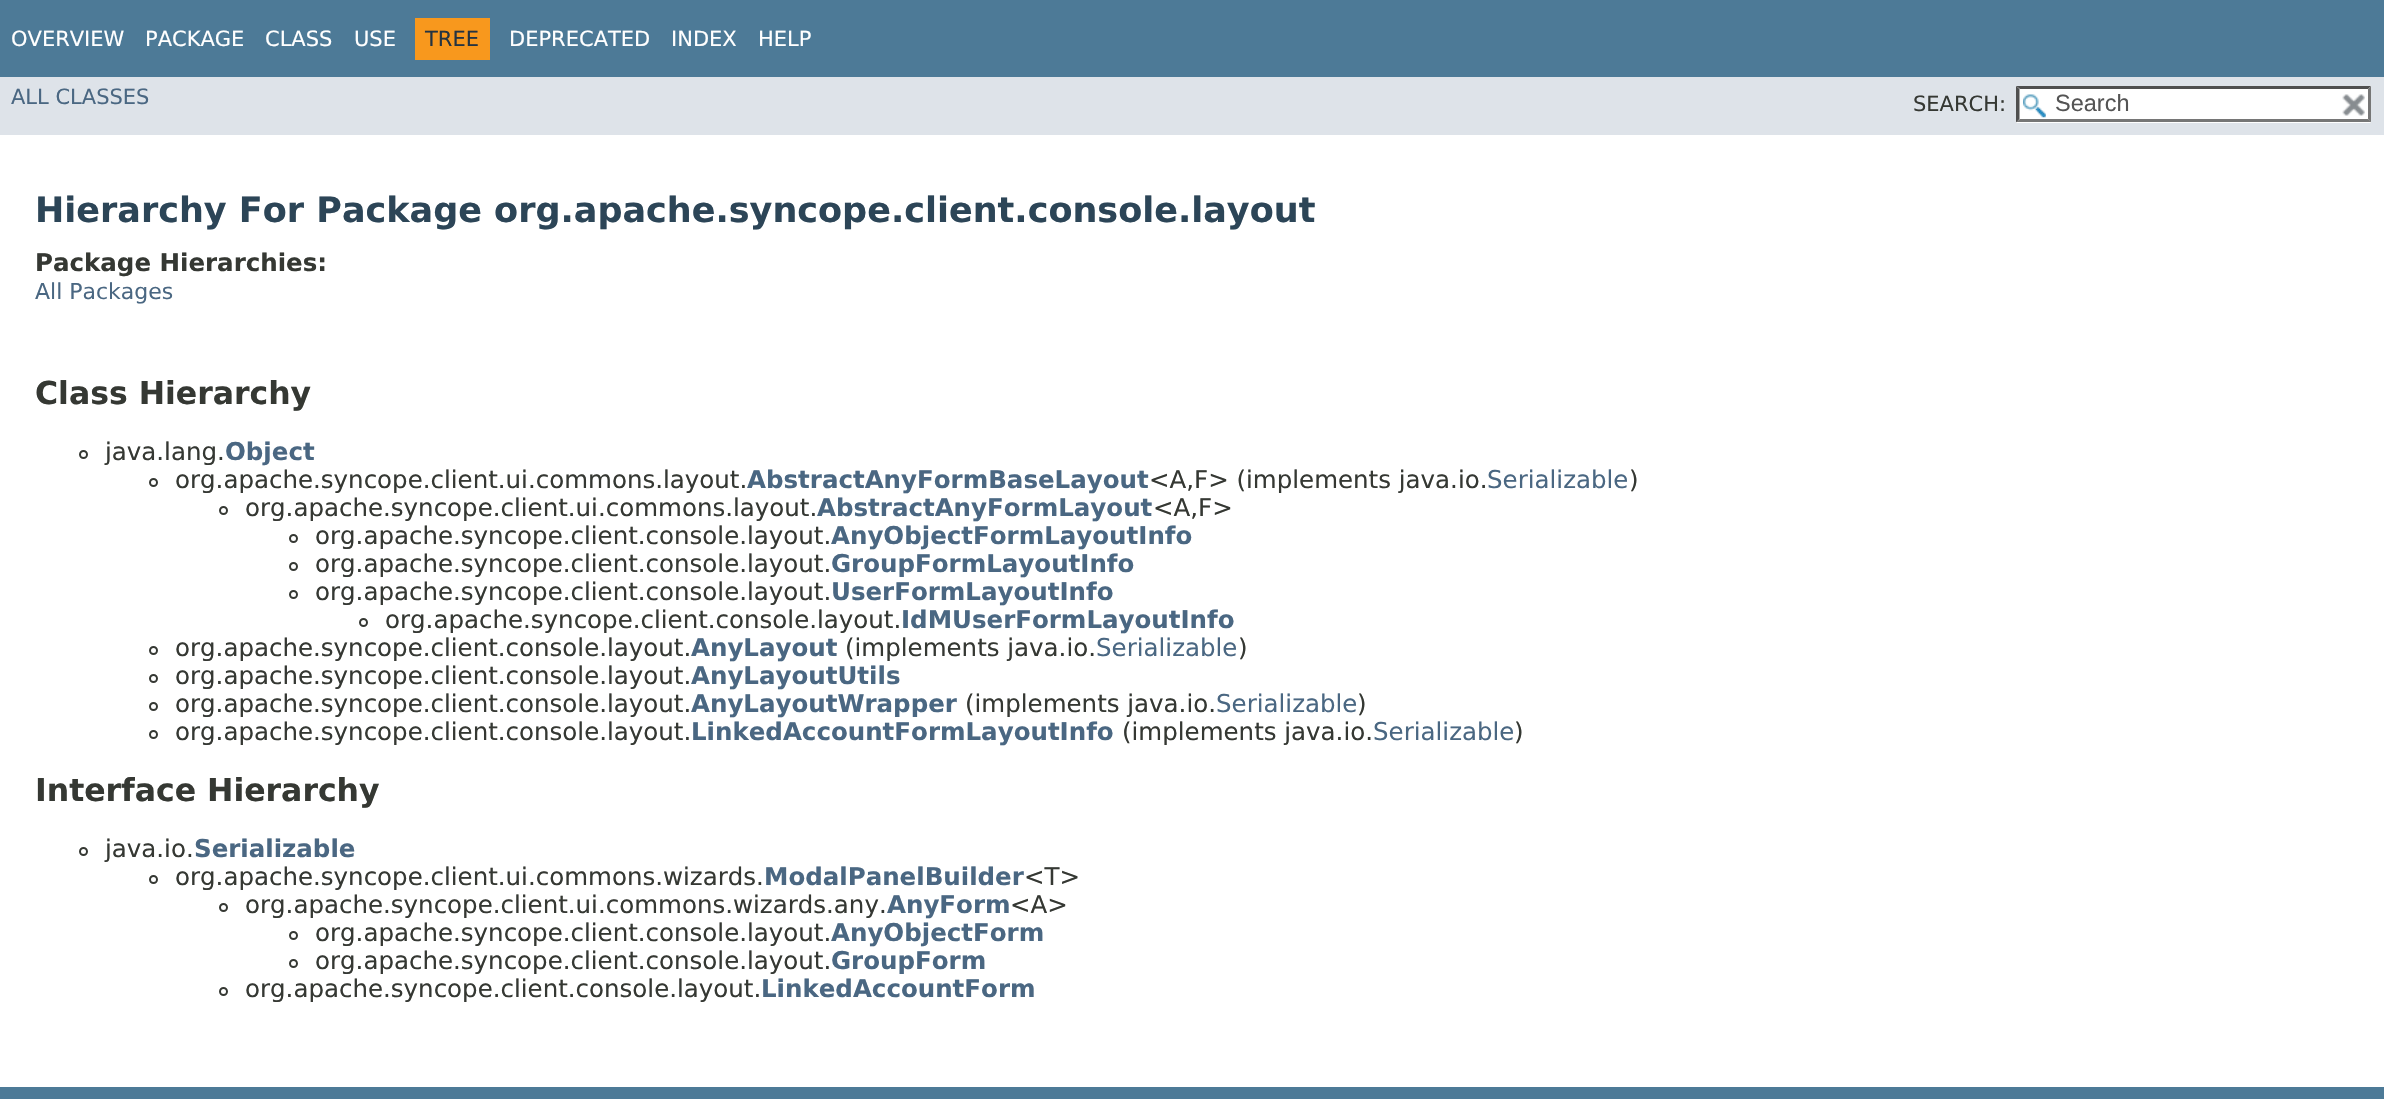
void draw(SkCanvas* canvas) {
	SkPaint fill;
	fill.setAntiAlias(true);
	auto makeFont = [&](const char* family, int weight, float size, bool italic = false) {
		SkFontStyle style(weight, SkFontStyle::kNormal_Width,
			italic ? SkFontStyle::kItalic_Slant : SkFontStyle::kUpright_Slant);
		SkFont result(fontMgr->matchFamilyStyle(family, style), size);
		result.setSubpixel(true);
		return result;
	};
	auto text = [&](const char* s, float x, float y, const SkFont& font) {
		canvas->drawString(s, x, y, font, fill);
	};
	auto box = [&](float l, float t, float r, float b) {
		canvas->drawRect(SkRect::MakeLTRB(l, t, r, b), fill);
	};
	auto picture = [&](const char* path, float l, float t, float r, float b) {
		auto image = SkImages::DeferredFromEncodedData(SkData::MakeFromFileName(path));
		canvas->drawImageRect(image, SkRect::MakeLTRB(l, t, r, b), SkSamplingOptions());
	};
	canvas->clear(0xFFFFFFFF);
	fill.setColor(0xFF4D7A97);
	box(0, 0, 2384, 77);
	fill.setColor(0xFFF8981D);
	box(415, 18, 490, 60);
	fill.setColor(0xFFDEE3E9);
	box(0, 77, 2384, 135);
	fill.setColor(0xFFFFFFFF);
	box(2016, 86, 2371, 123);
	picture("image0.png", 2023, 94, 2046, 118);
	fill.setColor(0xFF4F4F4F);
	canvas->drawPath(SkPathBuilder().moveTo(2016, 86).lineTo(2371, 86).lineTo(2368, 89).lineTo(2020, 89).close().detach(), fill);
	fill.setColor(0xFF767676);
	canvas->drawPath(SkPathBuilder().moveTo(2371, 86).lineTo(2371, 122.5f).lineTo(2368, 119).lineTo(2368, 89).close().detach(), fill);
	canvas->drawPath(SkPathBuilder().moveTo(2371, 122).lineTo(2016, 122).lineTo(2020, 119).lineTo(2368, 119).close().detach(), fill);
	fill.setColor(0xFF4F4F4F);
	canvas->drawPath(SkPathBuilder().moveTo(2016, 122.5f).lineTo(2016, 86).lineTo(2019.5f, 89).lineTo(2019.5f, 119).close().detach(), fill);
	picture("image1.png", 2342, 94, 2365, 116);
	fill.setStyle(SkPaint::kStroke_Style);
	fill.setStrokeWidth(2);
	fill.setColor(0xFF353833);
	canvas->drawCircle(83.5f, 454.5f, 3.5f, fill);
	canvas->drawCircle(153.5f, 482.5f, 3.5f, fill);
	canvas->drawCircle(223.5f, 510.5f, 3.5f, fill);
	canvas->drawCircle(293.5f, 538.5f, 3.5f, fill);
	canvas->drawCircle(293.5f, 566.5f, 3.5f, fill);
	canvas->drawCircle(293.5f, 594.5f, 3.5f, fill);
	canvas->drawCircle(363.5f, 622.5f, 3.5f, fill);
	canvas->drawCircle(153.5f, 650.5f, 3.5f, fill);
	canvas->drawCircle(153.5f, 678.5f, 3.5f, fill);
	canvas->drawCircle(153.5f, 706.5f, 3.5f, fill);
	canvas->drawCircle(153.5f, 734.5f, 3.5f, fill);
	canvas->drawCircle(83.5f, 851.5f, 3.5f, fill);
	canvas->drawCircle(153.5f, 879.5f, 3.5f, fill);
	canvas->drawCircle(223.5f, 907.5f, 3.5f, fill);
	canvas->drawCircle(293.5f, 935.5f, 3.5f, fill);
	canvas->drawCircle(293.5f, 963.5f, 3.5f, fill);
	canvas->drawCircle(223.5f, 991.5f, 3.5f, fill);
	fill.setStyle(SkPaint::kFill_Style);
	fill.setColor(0xFF4D7A97);
	box(0, 1087, 2384, 1099);
	auto font1 = makeFont("DejaVu Sans", 400, 21);
	fill.setColor(0xFFFFFFFF);
	text("OVERVIEW", 11, 46, font1);
	text("PACKAGE", 145, 46, font1);
	text("CLASS", 265, 46, font1);
	text("USE", 354, 46, font1);
	fill.setColor(0xFF253441);
	text("TREE", 425, 46, font1);
	fill.setColor(0xFFFFFFFF);
	text("DEPRECATED", 509, 46, font1);
	text("INDEX", 671, 46, font1);
	text("HELP", 758, 46, font1);
	fill.setColor(0xFF4A6782);
	text("ALL CLASSES", 11, 104, font1);
	fill.setColor(0xFF353833);
	text("SEARCH:", 1913, 111, font1);
	auto font2 = makeFont("Liberation Sans", 400, 23.5f);
	fill.setColor(0xFF545454);
	text("Search", 2055, 111, font2);
	auto font3 = makeFont("DejaVu Sans", 700, 35);
	fill.setColor(0xFF2C4557);
	text("Hierarchy For Package org.apache.syncope.client.console.layout", 35, 222, font3);
	auto font4 = makeFont("DejaVu Sans", 700, 24.5f);
	fill.setColor(0xFF353833);
	text("Package Hierarchies:", 35, 271, font4);
	auto font5 = makeFont("DejaVu Sans", 400, 22);
	fill.setColor(0xFF4A6782);
	text("All Packages", 35, 299, font5);
	auto font6 = makeFont("DejaVu Sans", 700, 31.5f);
	fill.setColor(0xFF353833);
	text("Class Hierarchy", 35, 404, font6);
	auto font7 = makeFont("DejaVu Sans", 400, 24.5f);
	text("java.lang.", 105, 460, font7);
	fill.setColor(0xFF4A6782);
	text("Object", 225, 460, font4);
	fill.setColor(0xFF353833);
	text("org.apache.syncope.client.ui.commons.layout.", 175, 488, font7);
	fill.setColor(0xFF4A6782);
	text("AbstractAnyFormBaseLayout", 747, 488, font4);
	fill.setColor(0xFF353833);
	text("<A,F> (implements java.io.", 1149, 488, font7);
	fill.setColor(0xFF4A6782);
	text("Serializable", 1487, 488, font7);
	fill.setColor(0xFF353833);
	text(")", 1629, 488, font7);
	text("org.apache.syncope.client.ui.commons.layout.", 245, 516, font7);
	fill.setColor(0xFF4A6782);
	text("AbstractAnyFormLayout", 817, 516, font4);
	fill.setColor(0xFF353833);
	text("<A,F>", 1153, 516, font7);
	text("org.apache.syncope.client.console.layout.", 315, 544, font7);
	fill.setColor(0xFF4A6782);
	text("AnyObjectFormLayoutInfo", 831, 544, font4);
	fill.setColor(0xFF353833);
	text("org.apache.syncope.client.console.layout.", 315, 572, font7);
	fill.setColor(0xFF4A6782);
	text("GroupFormLayoutInfo", 831, 572, font4);
	fill.setColor(0xFF353833);
	text("org.apache.syncope.client.console.layout.", 315, 600, font7);
	fill.setColor(0xFF4A6782);
	text("UserFormLayoutInfo", 831, 600, font4);
	fill.setColor(0xFF353833);
	text("org.apache.syncope.client.console.layout.", 385, 628, font7);
	fill.setColor(0xFF4A6782);
	text("IdMUserFormLayoutInfo", 901, 628, font4);
	fill.setColor(0xFF353833);
	text("org.apache.syncope.client.console.layout.", 175, 656, font7);
	fill.setColor(0xFF4A6782);
	text("AnyLayout", 691, 656, font4);
	fill.setColor(0xFF353833);
	text("(implements java.io.", 845, 656, font7);
	fill.setColor(0xFF4A6782);
	text("Serializable", 1096, 656, font7);
	fill.setColor(0xFF353833);
	text(")", 1238, 656, font7);
	text("org.apache.syncope.client.console.layout.", 175, 684, font7);
	fill.setColor(0xFF4A6782);
	text("AnyLayoutUtils", 691, 684, font4);
	fill.setColor(0xFF353833);
	text("org.apache.syncope.client.console.layout.", 175, 712, font7);
	fill.setColor(0xFF4A6782);
	text("AnyLayoutWrapper", 691, 712, font4);
	fill.setColor(0xFF353833);
	text("(implements java.io.", 965, 712, font7);
	fill.setColor(0xFF4A6782);
	text("Serializable", 1216, 712, font7);
	fill.setColor(0xFF353833);
	text(")", 1357, 712, font7);
	text("org.apache.syncope.client.console.layout.", 175, 740, font7);
	fill.setColor(0xFF4A6782);
	text("LinkedAccountFormLayoutInfo", 691, 740, font4);
	fill.setColor(0xFF353833);
	text("(implements java.io.", 1122, 740, font7);
	fill.setColor(0xFF4A6782);
	text("Serializable", 1373, 740, font7);
	fill.setColor(0xFF353833);
	text(")", 1514, 740, font7);
	text("Interface Hierarchy", 35, 801, font6);
	text("java.io.", 105, 857, font7);
	fill.setColor(0xFF4A6782);
	text("Serializable", 194, 857, font4);
	fill.setColor(0xFF353833);
	text("org.apache.syncope.client.ui.commons.wizards.", 175, 885, font7);
	fill.setColor(0xFF4A6782);
	text("ModalPanelBuilder", 764, 885, font4);
	fill.setColor(0xFF353833);
	text("<T>", 1024, 885, font7);
	text("org.apache.syncope.client.ui.commons.wizards.any.", 245, 913, font7);
	fill.setColor(0xFF4A6782);
	text("AnyForm", 887, 913, font4);
	fill.setColor(0xFF353833);
	text("<A>", 1010, 913, font7);
	text("org.apache.syncope.client.console.layout.", 315, 941, font7);
	fill.setColor(0xFF4A6782);
	text("AnyObjectForm", 831, 941, font4);
	fill.setColor(0xFF353833);
	text("org.apache.syncope.client.console.layout.", 315, 969, font7);
	fill.setColor(0xFF4A6782);
	text("GroupForm", 831, 969, font4);
	fill.setColor(0xFF353833);
	text("org.apache.syncope.client.console.layout.", 245, 997, font7);
	fill.setColor(0xFF4A6782);
	text("LinkedAccountForm", 761, 997, font4);
}
